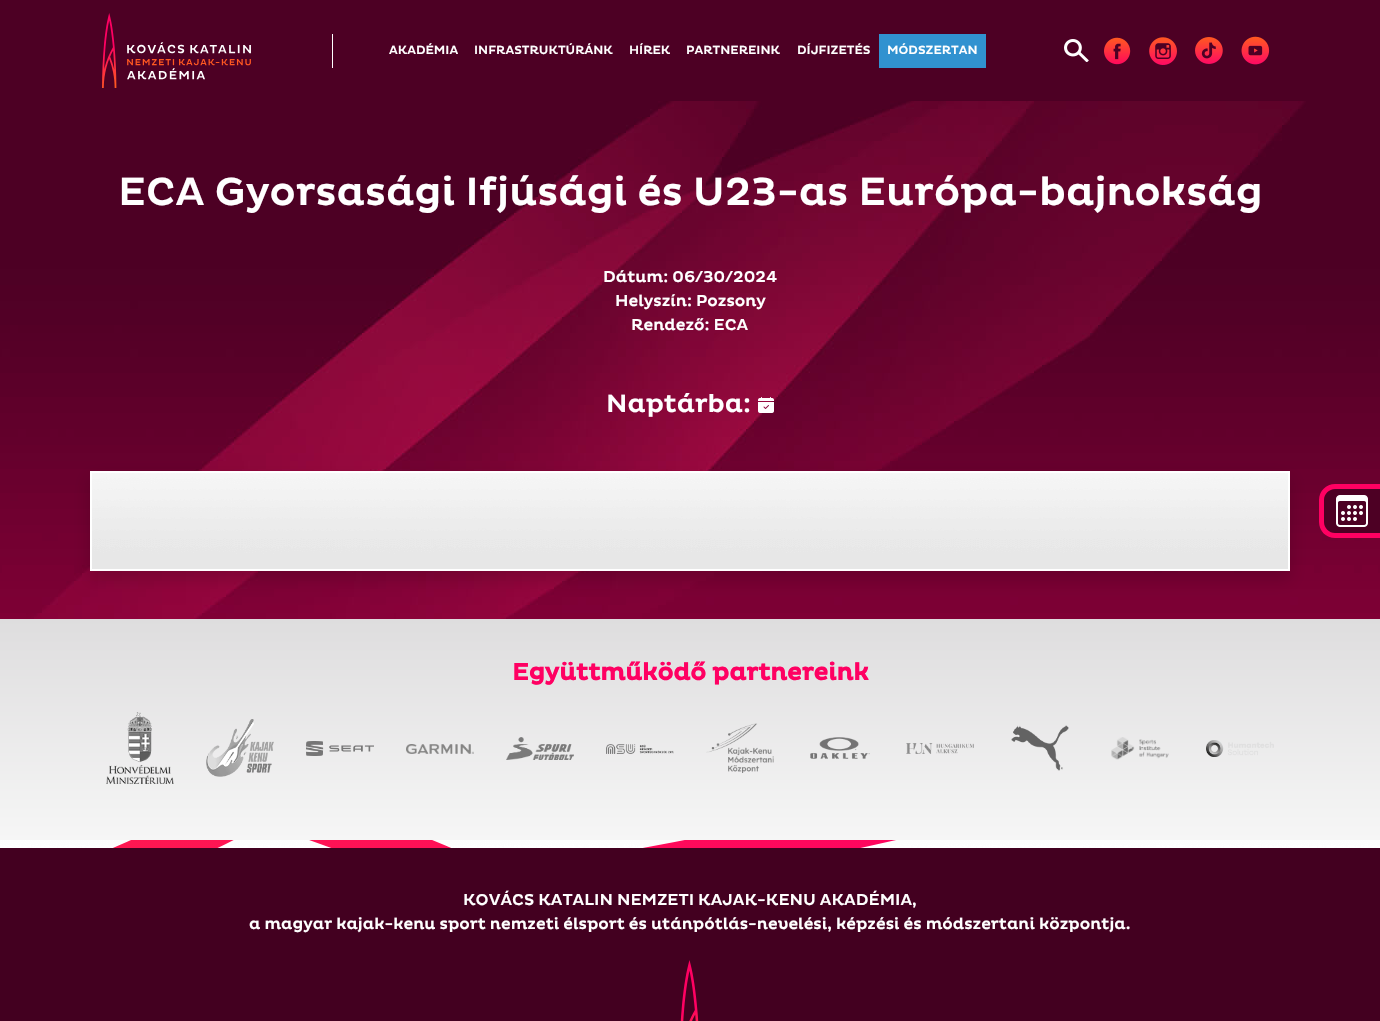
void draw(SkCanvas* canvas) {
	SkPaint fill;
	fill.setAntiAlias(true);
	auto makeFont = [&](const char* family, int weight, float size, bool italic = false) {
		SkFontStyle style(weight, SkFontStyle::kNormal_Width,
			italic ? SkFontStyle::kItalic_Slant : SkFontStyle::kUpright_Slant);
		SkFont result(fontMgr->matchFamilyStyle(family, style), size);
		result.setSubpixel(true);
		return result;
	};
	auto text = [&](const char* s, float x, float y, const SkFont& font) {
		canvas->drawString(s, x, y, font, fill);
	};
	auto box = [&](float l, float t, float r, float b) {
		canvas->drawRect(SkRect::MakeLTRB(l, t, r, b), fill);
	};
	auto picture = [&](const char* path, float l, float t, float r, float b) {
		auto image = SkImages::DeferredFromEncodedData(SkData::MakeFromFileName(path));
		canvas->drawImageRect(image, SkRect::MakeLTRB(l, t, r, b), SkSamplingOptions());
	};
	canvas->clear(0xFFFFFFFF);
	fill.setColor(0xFF4D0024);
	box(0, 0, 1380, 101);
	picture("image0.png", 102, 13, 251, 88);
	fill.setColor(0xFFFFFFFF);
	box(332, 34, 333, 68);
	fill.setColor(0xFF3192D0);
	box(879, 34, 986, 68);
	picture("image1.png", 1064, 39, 1089, 62);
	picture("image2.png", 1104, 37, 1131, 65);
	picture("image3.png", 1149, 37, 1177, 65);
	picture("image4.png", 1195, 37, 1223, 64);
	picture("image5.png", 1241, 36, 1270, 65);
	picture("image6.png", 0, 101, 1380, 619);
	picture("image7.png", 758, 397, 774, 413);
	fill.setColor(0x26000000);
	fill.setMaskFilter(SkMaskFilter::MakeBlur(kNormal_SkBlurStyle, 8));
	canvas->drawRect(SkRect::MakeLTRB(90, 479, 1290, 579), fill);
	fill.setMaskFilter(nullptr);
	picture("image8.png", 92, 473, 1288, 569);
	fill.setStyle(SkPaint::kStroke_Style);
	fill.setStrokeWidth(2);
	fill.setColor(0xFFFFFFFF);
	canvas->drawRect(SkRect::MakeLTRB(91, 472, 1289, 570), fill);
	picture("image9.png", 0, 840, 1380, 848);
	fill.setStyle(SkPaint::kFill_Style);
	fill.setColor(0xFF4D0024);
	canvas->drawPath(SkPathBuilder().moveTo(1335, 484).lineTo(1380, 484).lineTo(1380, 538).lineTo(1335, 538).cubicTo(1326, 538, 1319, 531, 1319, 522).lineTo(1319, 500).cubicTo(1319, 491, 1326, 484, 1335, 484).close().detach(), fill);
	fill.setColor(0xFFFF0062);
	canvas->drawPath(SkPathBuilder(SkPathFillType::kEvenOdd).moveTo(1335, 484).lineTo(1380, 484).lineTo(1380, 538).lineTo(1335, 538).cubicTo(1326, 538, 1319, 531, 1319, 522).lineTo(1319, 500).cubicTo(1319, 491, 1326, 484, 1335, 484).close().moveTo(1335, 489).lineTo(1380, 489).lineTo(1380, 533).lineTo(1335, 533).cubicTo(1329, 533, 1324, 528, 1324, 522).lineTo(1324, 500).cubicTo(1324, 494, 1329, 489, 1335, 489).close().detach(), fill);
	picture("image10.png", 1336, 495, 1368, 527);
	{
		const SkColor colors[] = {0xFFDEDDDE, 0xFFF6F6F6};
		const float stops[] = {0, 1};
		const SkPoint ends[] = {{690, 619}, {690, 840}};
		fill.setShader(SkGradientShader::MakeLinear(ends, colors, stops, 2, SkTileMode::kClamp));
		fill.setAlpha(255);
	}
	box(0, 619, 1380, 840);
	picture("image11.png", 106, 712, 174, 784);
	picture("image12.png", 206, 719, 274, 777);
	picture("image13.png", 306, 741, 374, 756);
	picture("image14.png", 406, 744, 474, 754);
	picture("image15.png", 506, 737, 574, 760);
	picture("image16.png", 606, 744, 674, 754);
	picture("image17.png", 706, 723, 774, 773);
	picture("image18.png", 810, 737, 870, 759);
	picture("image19.png", 906, 743, 974, 754);
	picture("image20.png", 1011, 725, 1069, 771);
	picture("image21.png", 1111, 737, 1169, 760);
	picture("image22.png", 1206, 740, 1274, 757);
	{
		const SkColor colors[] = {0xFF430020, 0xFF430020, 0xFF36011A};
		const float stops[] = {0, 0.44f, 1};
		const SkPoint ends[] = {{690, 848}, {690, 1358}};
		fill.setShader(SkGradientShader::MakeLinear(ends, colors, stops, 3, SkTileMode::kClamp));
		fill.setAlpha(255);
	}
	box(0, 848, 1380, 1021);
	picture("image23.png", 680, 960, 699, 1021);
	auto font1 = makeFont("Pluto", 500, 12);
	fill.setShader(nullptr);
	fill.setColor(0xFFFFFFFF);
	text("AKADÉMIA", 389, 54, font1);
	text("INFRASTRUKTÚRÁNK", 474, 54, font1);
	text("HÍREK", 629, 54, font1);
	text("PARTNEREINK", 686, 54, font1);
	text("DÍJFIZETÉS", 797, 54, font1);
	text("MÓDSZERTAN", 887, 54, font1);
	auto font2 = makeFont("Pluto", 500, 40);
	text("ECA Gyorsasági Ifjúsági és U23-as Európa-bajnokság", 118, 205, font2);
	auto font3 = makeFont("Pluto", 500, 16);
	text("Dátum: 06/30/2024", 603, 282, font3);
	text("Helyszín: Pozsony", 615, 306, font3);
	text("Rendező: ECA", 631, 330, font3);
	auto font4 = makeFont("Pluto", 500, 25.5f);
	text("Naptárba:", 606, 412, font4);
	auto font5 = makeFont("Pluto", 700, 24);
	fill.setColor(0xFFFF0062);
	text("Együttműködő partnereink", 512, 680, font5);
	fill.setColor(0xFFFFFFFF);
	text("KOVÁCS KATALIN NEMZETI KAJAK-KENU AKADÉMIA,", 463, 905, font3);
	text("a magyar kajak-kenu sport nemzeti élsport és utánpótlás-nevelési, képzési és módszertani központja.", 249, 929, font3);
}
